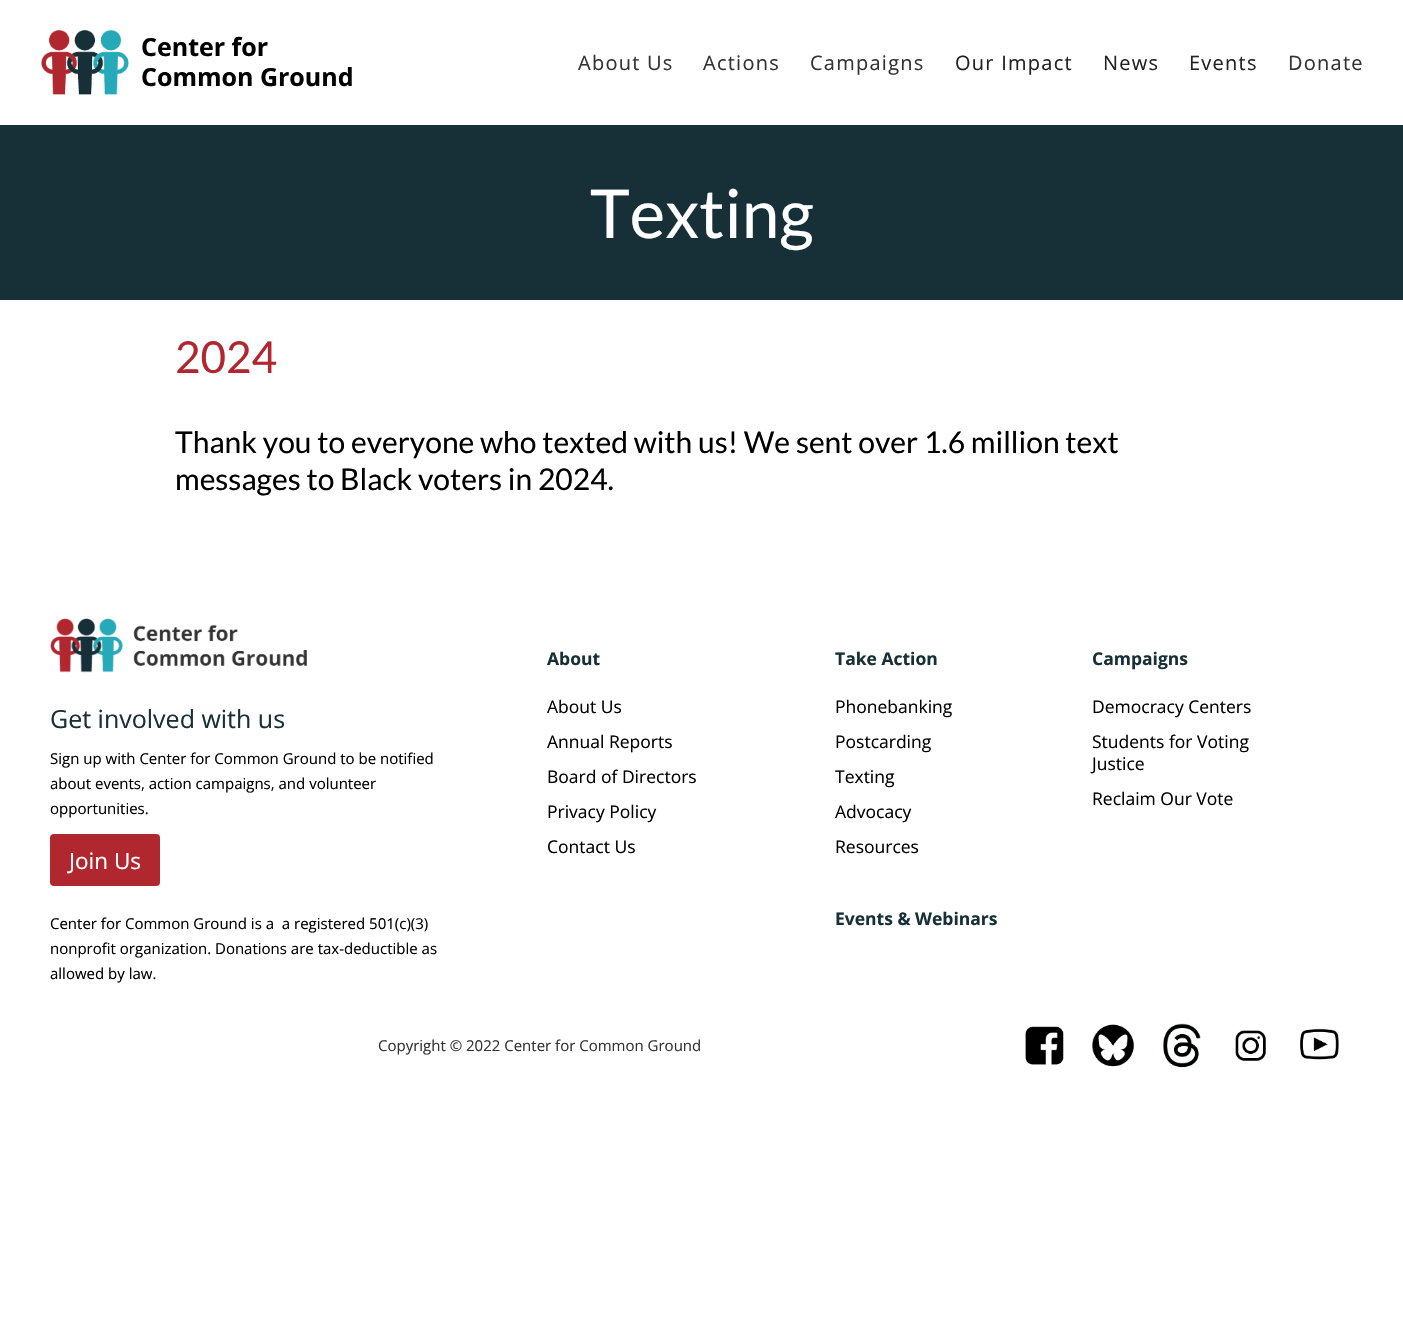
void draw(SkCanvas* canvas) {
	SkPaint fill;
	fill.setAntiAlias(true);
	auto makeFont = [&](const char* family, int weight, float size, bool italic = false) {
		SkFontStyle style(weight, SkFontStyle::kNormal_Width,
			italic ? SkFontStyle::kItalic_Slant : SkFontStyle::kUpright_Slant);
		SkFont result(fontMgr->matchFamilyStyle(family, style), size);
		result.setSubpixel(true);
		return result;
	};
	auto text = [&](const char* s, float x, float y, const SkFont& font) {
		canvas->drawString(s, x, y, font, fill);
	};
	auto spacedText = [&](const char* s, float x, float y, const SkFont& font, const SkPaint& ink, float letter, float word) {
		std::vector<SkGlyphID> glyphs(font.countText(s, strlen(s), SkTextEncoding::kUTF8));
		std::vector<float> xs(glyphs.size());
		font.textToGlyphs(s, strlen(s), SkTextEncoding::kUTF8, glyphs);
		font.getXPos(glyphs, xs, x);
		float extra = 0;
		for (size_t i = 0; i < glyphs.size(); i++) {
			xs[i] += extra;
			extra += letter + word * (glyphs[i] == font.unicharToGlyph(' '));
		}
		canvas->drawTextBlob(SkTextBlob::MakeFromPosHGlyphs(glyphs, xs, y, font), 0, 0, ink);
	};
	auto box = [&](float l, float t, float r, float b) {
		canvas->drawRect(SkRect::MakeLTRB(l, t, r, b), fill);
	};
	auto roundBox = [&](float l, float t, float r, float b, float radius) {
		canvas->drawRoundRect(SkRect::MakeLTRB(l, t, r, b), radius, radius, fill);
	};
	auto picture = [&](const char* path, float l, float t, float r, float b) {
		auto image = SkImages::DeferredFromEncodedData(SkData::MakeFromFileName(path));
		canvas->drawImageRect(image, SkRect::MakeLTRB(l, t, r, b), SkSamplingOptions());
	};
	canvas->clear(0xFFFFFFFF);
	picture("image0.png", 41, 30, 129, 95);
	fill.setColor(0xFF173038);
	box(0, 125, 1403, 300);
	picture("image1.png", 50, 618, 307, 673);
	fill.setColor(0xFFB0272F);
	roundBox(50, 834, 160, 886, 4);
	picture("image2.png", 1025, 1026, 1064, 1065);
	picture("image3.png", 1092, 1024, 1135, 1067);
	picture("image4.png", 1163, 1023, 1201, 1068);
	picture("image5.png", 1235, 1030, 1266, 1061);
	picture("image6.png", 1299, 1028, 1339, 1060);
	auto font1 = makeFont("Open Sans", 700, 25);
	fill.setColor(0xFF000000);
	text("Center for", 141, 56, font1);
	text("Common Ground", 141, 86, font1);
	auto font2 = makeFont("Open Sans", 400, 20);
	fill.setColor(0xFF333333);
	spacedText("About Us", 578, 70, font2, fill, 1.25f, 0);
	spacedText("Actions", 703, 70, font2, fill, 1.25f, 0);
	spacedText("Campaigns", 810, 70, font2, fill, 1.25f, 0);
	fill.setColor(0xFF222222);
	spacedText("Our Impact", 955, 70, font2, fill, 1.25f, 0);
	spacedText("News", 1103, 70, font2, fill, 1.25f, 0);
	spacedText("Events", 1189, 70, font2, fill, 1.25f, 0);
	fill.setColor(0xFF333333);
	spacedText("Donate", 1288, 70, font2, fill, 1.25f, 0);
	auto font3 = makeFont("Lato", 400, 67.5f);
	fill.setColor(0xFFFFFFFF);
	text("Texting", 590, 238, font3);
	auto font4 = makeFont("Lato", 400, 44);
	fill.setColor(0xFFB0272F);
	text("2024", 175, 373, font4);
	auto font5 = makeFont("Lato", 400, 30);
	fill.setColor(0xFF000000);
	text("Thank you to everyone who texted with us! We sent over 1.6 million text", 175, 453, font5);
	text("messages to Black voters in 2024.", 175, 490, font5);
	auto font6 = makeFont("Open Sans", 400, 25);
	fill.setColor(0xFF173038);
	text("Get involved with us", 50, 728, font6);
	auto font7 = makeFont("Open Sans", 400, 15);
	fill.setColor(0xFF000000);
	text("Sign up with Center for Common Ground to be notified", 50, 764, font7);
	text("about events, action campaigns, and volunteer", 50, 789, font7);
	text("opportunities.", 50, 814, font7);
	auto font8 = makeFont("Open Sans", 400, 22.5f);
	fill.setColor(0xFFFFFFFF);
	text("Join Us", 69, 869, font8);
	fill.setColor(0xFF000000);
	text("Center for Common Ground is a  a registered 501(c)(3)", 50, 929, font7);
	text("nonprofit organization. Donations are tax-deductible as", 50, 954, font7);
	text("allowed by law.", 50, 979, font7);
	auto font9 = makeFont("Open Sans", 700, 17.5f);
	fill.setColor(0xFF173038);
	text("About", 547, 665, font9);
	auto font10 = makeFont("Open Sans", 400, 17.5f);
	fill.setColor(0xFF000000);
	text("About Us", 547, 713, font10);
	text("Annual Reports", 547, 748, font10);
	text("Board of Directors", 547, 783, font10);
	text("Privacy Policy", 547, 818, font10);
	text("Contact Us", 547, 853, font10);
	fill.setColor(0xFF173038);
	text("Take Action", 835, 665, font9);
	fill.setColor(0xFF000000);
	text("Phonebanking", 835, 713, font10);
	text("Postcarding", 835, 748, font10);
	text("Texting", 835, 783, font10);
	text("Advocacy", 835, 818, font10);
	text("Resources", 835, 853, font10);
	fill.setColor(0xFF173038);
	text("Events & Webinars", 835, 925, font9);
	text("Campaigns", 1092, 665, font9);
	fill.setColor(0xFF000000);
	text("Democracy Centers", 1092, 713, font10);
	text("Students for Voting", 1092, 748, font10);
	text("Justice", 1092, 770, font10);
	text("Reclaim Our Vote", 1092, 805, font10);
	fill.setColor(0xFF333333);
	text("Copyright © 2022 Center for Common Ground", 378, 1051, font7);
}
